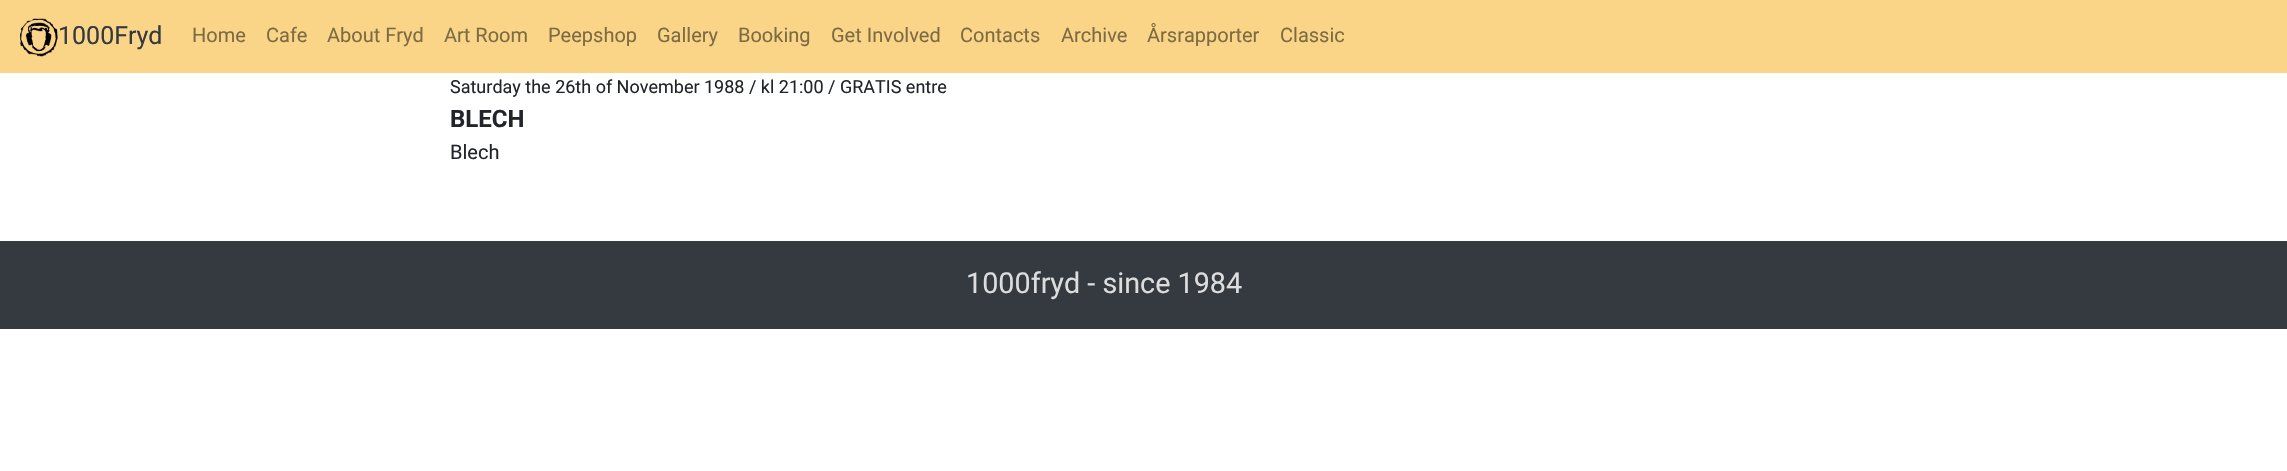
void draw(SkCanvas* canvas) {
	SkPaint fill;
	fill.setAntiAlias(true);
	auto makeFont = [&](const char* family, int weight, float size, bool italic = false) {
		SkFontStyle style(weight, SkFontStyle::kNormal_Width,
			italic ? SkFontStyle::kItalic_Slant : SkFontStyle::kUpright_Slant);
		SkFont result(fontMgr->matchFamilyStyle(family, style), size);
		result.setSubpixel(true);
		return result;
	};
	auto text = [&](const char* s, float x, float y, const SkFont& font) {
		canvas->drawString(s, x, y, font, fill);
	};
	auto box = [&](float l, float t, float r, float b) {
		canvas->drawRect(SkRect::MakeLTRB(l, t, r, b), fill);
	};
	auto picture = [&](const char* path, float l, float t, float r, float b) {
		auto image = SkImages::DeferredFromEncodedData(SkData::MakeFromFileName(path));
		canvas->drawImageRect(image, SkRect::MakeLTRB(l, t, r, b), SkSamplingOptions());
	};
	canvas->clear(0xFFFFFFFF);
	fill.setColor(0xFFFAD587);
	box(0, 0, 2287, 73);
	picture("image0.png", 20, 18, 58, 57);
	fill.setColor(0xFF343A40);
	box(0, 241, 2287, 329);
	auto font1 = makeFont("Roboto", 400, 25);
	text("1000Fryd", 58, 44, font1);
	auto font2 = makeFont("Roboto", 400, 20);
	fill.setColor(0xFF7D6B44);
	text("Home", 192, 42, font2);
	text("Cafe", 266, 42, font2);
	text("About Fryd", 327, 42, font2);
	text("Art Room", 444, 42, font2);
	text("Peepshop", 548, 42, font2);
	text("Gallery", 657, 42, font2);
	text("Booking", 738, 42, font2);
	text("Get Involved", 831, 42, font2);
	text("Contacts", 960, 42, font2);
	text("Archive", 1061, 42, font2);
	text("Årsrapporter", 1147, 42, font2);
	text("Classic", 1280, 42, font2);
	auto font3 = makeFont("Roboto", 400, 18);
	fill.setColor(0xFF212529);
	text("Saturday the 26th of November 1988 / kl 21:00 / GRATIS entre", 450, 93, font3);
	auto font4 = makeFont("Roboto", 700, 24);
	text("BLECH", 450, 127, font4);
	text("Blech", 450, 159, font2);
	auto font5 = makeFont("Roboto", 400, 28.75f);
	fill.setColor(0xFFDDDDDD);
	text("1000fryd - since 1984", 966, 293, font5);
}
